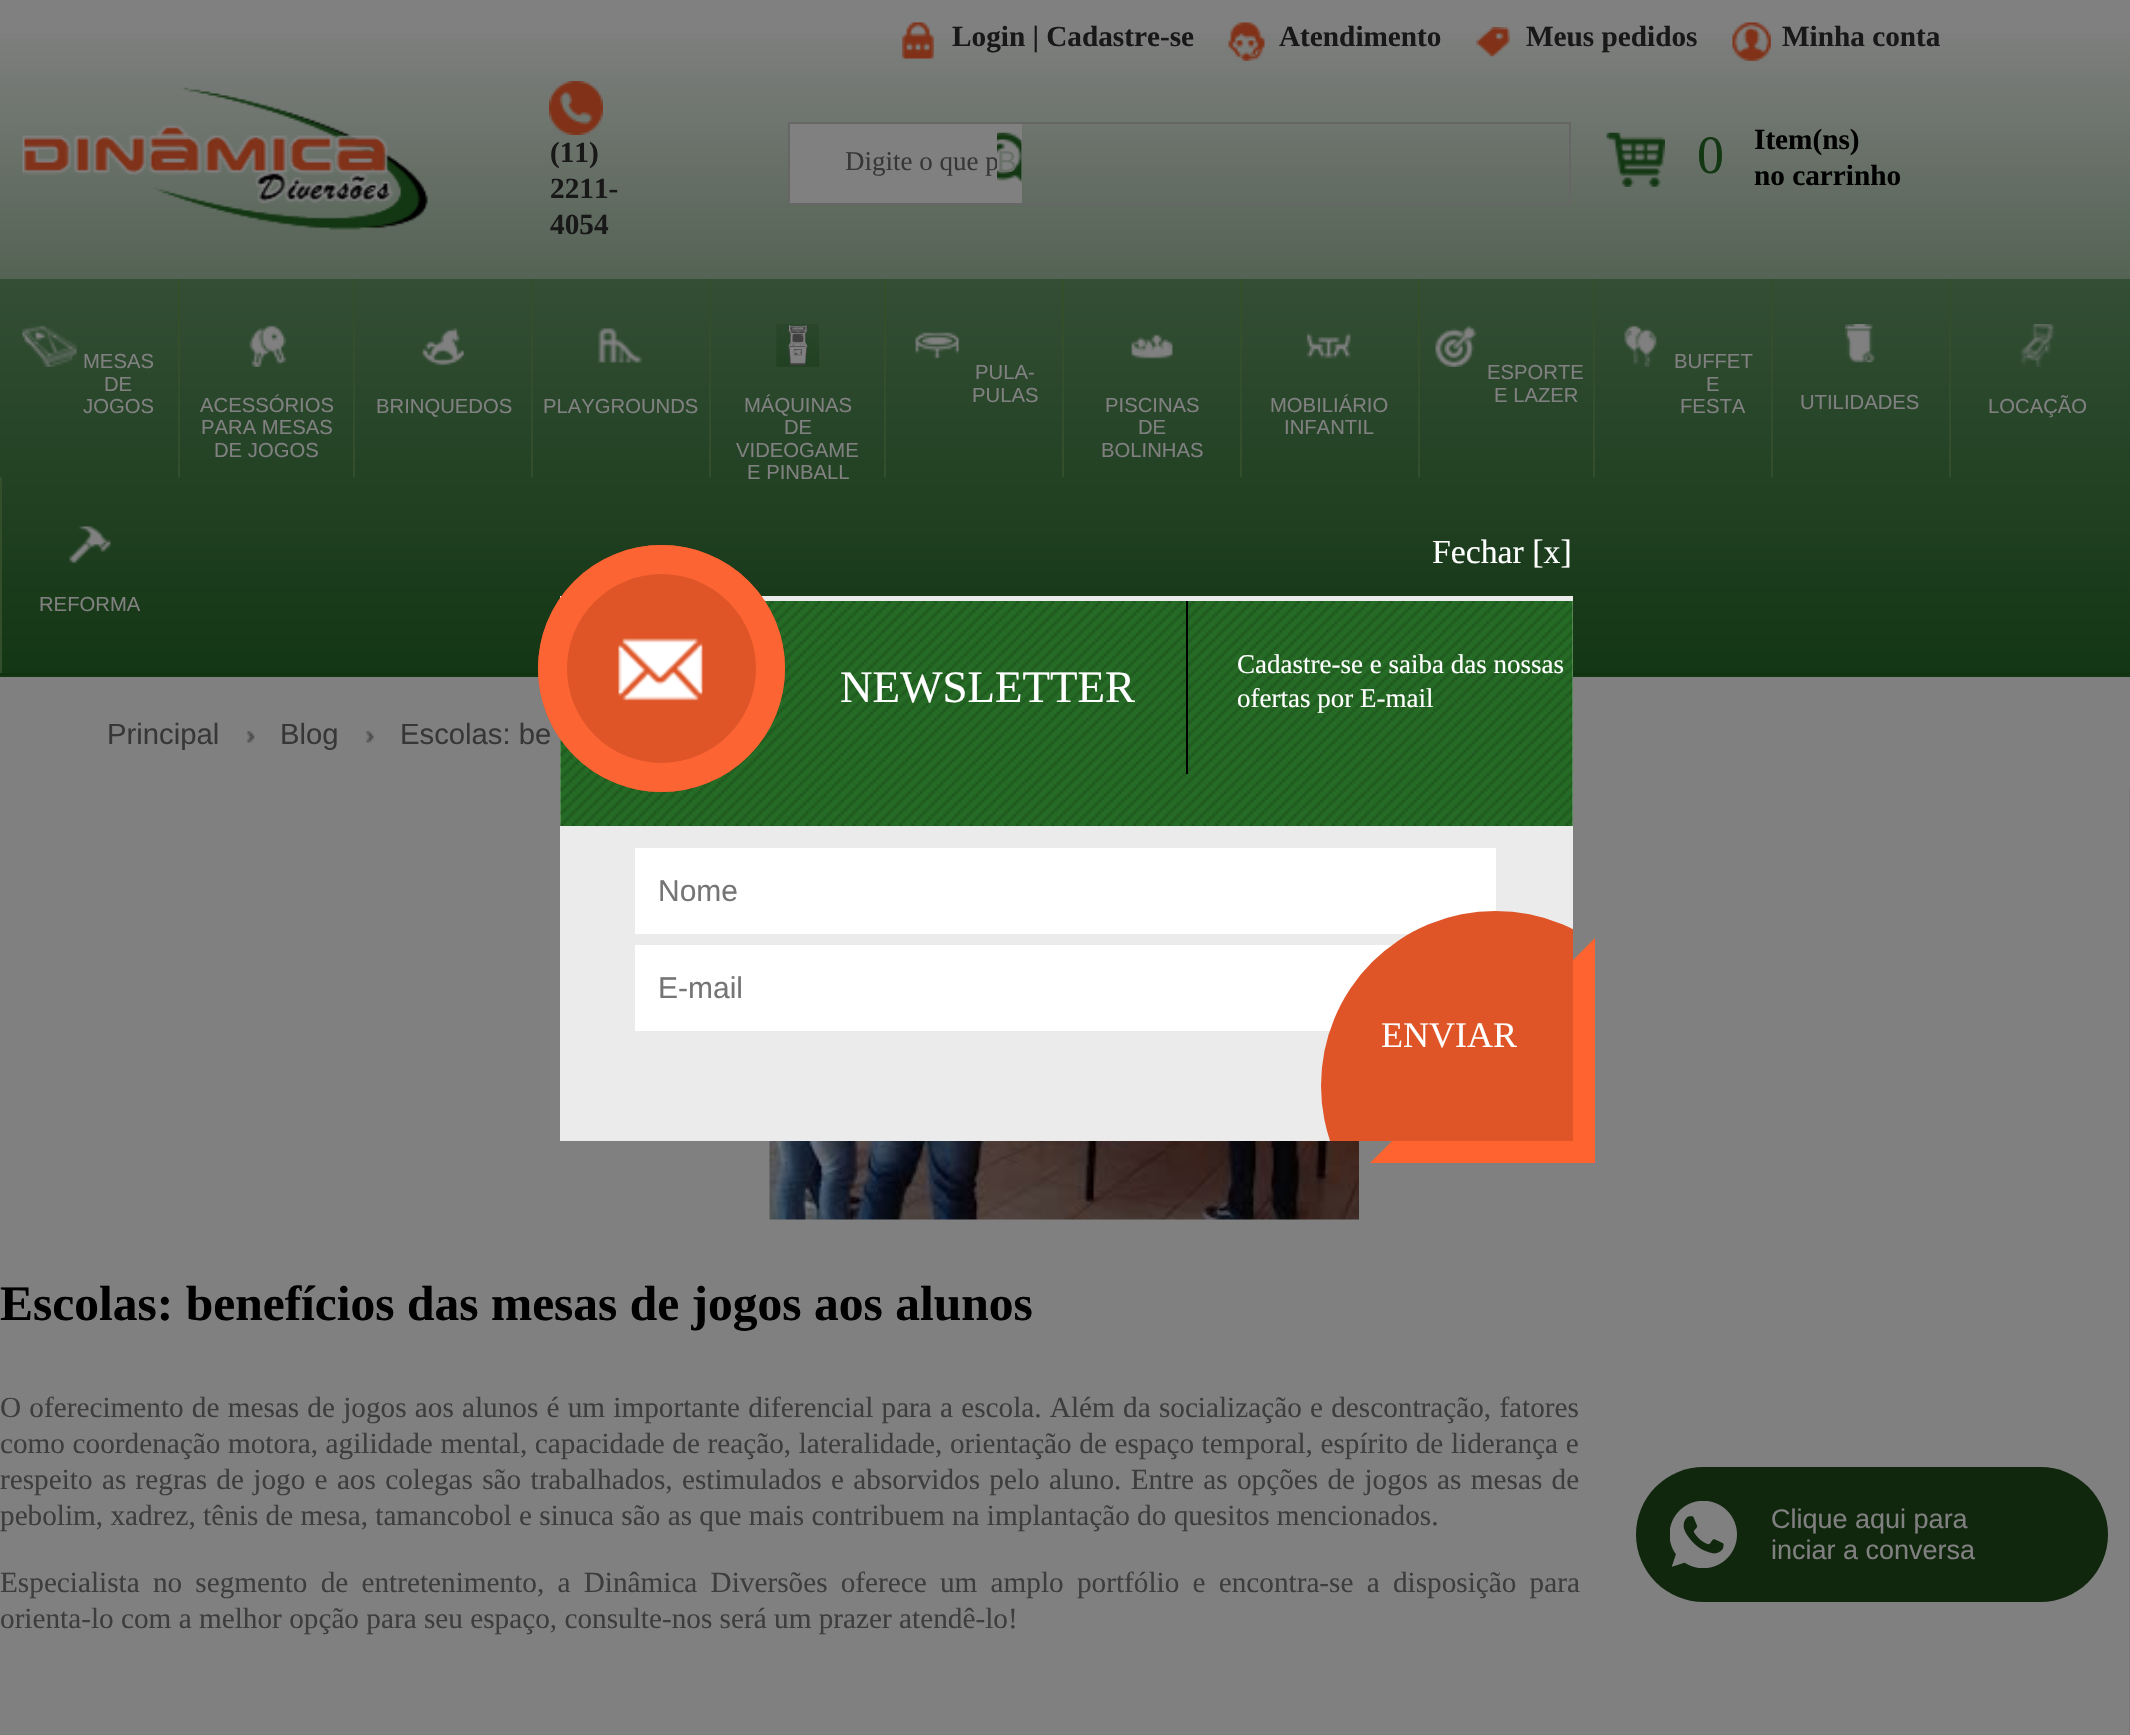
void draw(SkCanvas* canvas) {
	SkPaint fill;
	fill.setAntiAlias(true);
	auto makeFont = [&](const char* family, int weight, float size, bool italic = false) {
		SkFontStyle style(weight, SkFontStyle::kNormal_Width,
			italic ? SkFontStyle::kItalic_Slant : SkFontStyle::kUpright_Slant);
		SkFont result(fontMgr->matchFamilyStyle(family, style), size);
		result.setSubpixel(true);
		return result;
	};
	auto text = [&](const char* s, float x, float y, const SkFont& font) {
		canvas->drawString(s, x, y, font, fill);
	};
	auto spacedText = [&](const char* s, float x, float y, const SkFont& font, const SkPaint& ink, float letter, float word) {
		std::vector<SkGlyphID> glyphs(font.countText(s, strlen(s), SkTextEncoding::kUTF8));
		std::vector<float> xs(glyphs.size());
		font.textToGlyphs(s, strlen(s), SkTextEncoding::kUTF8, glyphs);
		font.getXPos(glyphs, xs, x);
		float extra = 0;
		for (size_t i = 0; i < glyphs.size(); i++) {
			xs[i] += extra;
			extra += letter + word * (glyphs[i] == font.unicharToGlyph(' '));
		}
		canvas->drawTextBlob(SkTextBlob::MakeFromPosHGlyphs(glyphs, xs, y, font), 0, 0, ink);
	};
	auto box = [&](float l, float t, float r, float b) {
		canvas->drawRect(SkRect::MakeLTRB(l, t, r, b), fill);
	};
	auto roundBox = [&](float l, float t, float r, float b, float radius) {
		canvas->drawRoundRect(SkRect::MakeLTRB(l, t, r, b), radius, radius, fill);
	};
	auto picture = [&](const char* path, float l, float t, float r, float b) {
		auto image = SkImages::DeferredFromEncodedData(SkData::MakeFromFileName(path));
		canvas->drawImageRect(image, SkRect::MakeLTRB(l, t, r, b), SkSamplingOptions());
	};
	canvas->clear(0xFF808080);
	{
		const SkColor colors[] = {0xFF808080, 0xFF546354};
		const float stops[] = {0, 1};
		const SkPoint ends[] = {{1065, 18}, {1065, 279}};
		fill.setShader(SkGradientShader::MakeLinear(ends, colors, stops, 2, SkTileMode::kClamp));
		fill.setAlpha(255);
	}
	box(0, 33, 2130, 279);
	picture("image0.png", 902, 22, 934, 59);
	picture("image1.png", 1228, 22, 1265, 61);
	picture("image2.png", 1476, 27, 1510, 57);
	picture("image3.png", 1732, 22, 1771, 61);
	picture("image4.png", 22, 87, 428, 230);
	picture("image5.png", 549, 81, 603, 135);
	fill.setStyle(SkPaint::kStroke_Style);
	fill.setStrokeWidth(2);
	fill.setShader(nullptr);
	fill.setColor(0xFF666666);
	canvas->drawRect(SkRect::MakeLTRB(789, 123, 1570, 204), fill);
	fill.setStyle(SkPaint::kFill_Style);
	fill.setColor(0xFF808080);
	box(790, 124, 1022, 203);
	picture("image6.png", 997, 132, 1022, 183);
	picture("image7.png", 1606, 132, 1665, 187);
	{
		const SkColor colors[] = {0xFF133613, 0xFF334E35};
		const float stops[] = {0, 1};
		const SkPoint ends[] = {{1065, 677}, {1065, 279}};
		fill.setShader(SkGradientShader::MakeLinear(ends, colors, stops, 2, SkTileMode::kClamp));
		fill.setAlpha(255);
	}
	box(0, 279, 2130, 677);
	picture("image8.png", 22, 325, 77, 367);
	fill.setShader(nullptr);
	fill.setColor(0xFF334E2B);
	box(884, 279, 886, 477);
	picture("image9.png", 915, 332, 960, 359);
	box(1418, 279, 1420, 477);
	picture("image10.png", 1435, 325, 1477, 367);
	box(1593, 279, 1595, 477);
	picture("image11.png", 1624, 325, 1657, 367);
	box(178, 279, 180, 477);
	picture("image12.png", 249, 325, 287, 367);
	box(353, 279, 355, 477);
	picture("image13.png", 422, 328, 465, 366);
	box(531, 279, 533, 477);
	picture("image14.png", 598, 328, 642, 363);
	box(709, 279, 711, 477);
	picture("image15.png", 776, 324, 819, 367);
	box(1062, 279, 1064, 477);
	picture("image16.png", 1131, 334, 1173, 359);
	box(1240, 279, 1242, 477);
	picture("image17.png", 1306, 332, 1351, 359);
	box(1771, 279, 1773, 477);
	picture("image18.png", 1845, 324, 1875, 363);
	box(1949, 279, 1951, 477);
	picture("image19.png", 2020, 324, 2055, 367);
	box(0, 477, 2, 675);
	picture("image20.png", 69, 526, 111, 564);
	fill.setColor(0xFF123112);
	box(0, 673, 2130, 675);
	fill.setColor(0xFFEBEBEB);
	box(560, 596, 1573, 1141);
	picture("image21.png", 560, 601, 1573, 826);
	fill.setColor(0xFF000000);
	box(1186, 601, 1188, 774);
	fill.setColor(0xFFFFFFFF);
	box(635, 848, 1496, 934);
	fill.setColor(0xFFFE6330);
	canvas->drawPath(SkPathBuilder().moveTo(1595, 1163).lineTo(1370, 1163).lineTo(1595, 938).close().detach(), fill);
	fill.setColor(0xFFFFFFFF);
	box(635, 945, 1392, 1031);
	picture("image25.png", 769, 1141, 1359, 1220);
	canvas->save();
	canvas->clipRect(SkRect::MakeLTRB(560, 848, 1573, 1141));
	fill.setColor(0xFFDF5527);
	canvas->drawCircle(1495.5f, 1085.5f, 174.5f, fill);
	canvas->restore();
	picture("image23.png", 247, 731, 255, 743);
	picture("image24.png", 366, 731, 374, 743);
	fill.setColor(0xFF767676);
	box(2129, 788, 2130, 1735);
	fill.setColor(0xFF10270D);
	roundBox(1636, 1467, 2108, 1602, 67.5f);
	picture("image26.png", 1670, 1501, 1737, 1568);
	auto font1 = makeFont("Liberation Serif", 700, 29.25f);
	fill.setColor(0xFF181818);
	text("Login | Cadastre-se", 952, 46, font1);
	text("Atendimento", 1279, 46, font1);
	text("Meus pedidos", 1526, 46, font1);
	text("Minha conta", 1782, 46, font1);
	text("(11)", 550, 162, font1);
	text("2211-", 550, 198, font1);
	text("4054", 550, 234, font1);
	canvas->save();
	canvas->clipRect(SkRect::MakeLTRB(846, 146, 997, 180));
	auto font2 = makeFont("Liberation Serif", 400, 27);
	fill.setColor(0xFF373737);
	text("Digite o que p", 845, 170, font2);
	canvas->restore();
	auto font3 = makeFont("Liberation Sans", 400, 30);
	fill.setColor(0xFF697069);
	text("B", 997, 172, font3);
	auto font4 = makeFont("Liberation Serif", 400, 54);
	fill.setColor(0xFF133613);
	text("0", 1697, 173, font4);
	fill.setColor(0xFF000000);
	text("Item(ns)", 1754, 149, font1);
	text("no carrinho", 1754, 185, font1);
	auto font5 = makeFont("Liberation Sans", 400, 20.25f);
	fill.setColor(0xFF808080);
	text("MESAS", 83, 368, font5);
	text("DE", 104, 391, font5);
	text("JOGOS", 83, 413, font5);
	text("PULA-", 975, 379, font5);
	text("PULAS", 972, 402, font5);
	text("ESPORTE", 1487, 379, font5);
	text("E LAZER", 1494, 402, font5);
	text("BUFFET", 1674, 368, font5);
	text("E", 1706, 391, font5);
	text("FESTA", 1680, 413, font5);
	text("ACESSÓRIOS", 200, 412, font5);
	text("PARA MESAS", 201, 434, font5);
	text("DE JOGOS", 214, 457, font5);
	text("BRINQUEDOS", 376, 413, font5);
	text("PLAYGROUNDS", 543, 413, font5);
	text("MÁQUINAS", 744, 412, font5);
	text("DE", 784, 434, font5);
	text("VIDEOGAME", 736, 457, font5);
	text("E PINBALL", 747, 479, font5);
	text("PISCINAS", 1105, 412, font5);
	text("DE", 1138, 434, font5);
	text("BOLINHAS", 1101, 457, font5);
	text("MOBILIÁRIO", 1270, 412, font5);
	text("INFANTIL", 1284, 434, font5);
	text("UTILIDADES", 1800, 409, font5);
	text("LOCAÇÃO", 1988, 413, font5);
	text("REFORMA", 39, 611, font5);
	auto font6 = makeFont("Liberation Serif", 400, 33.75f);
	fill.setColor(0xFFFFFFFF);
	text("Fechar [x]", 1432, 563, font6);
	auto font7 = makeFont("Liberation Serif", 400, 45);
	text("NEWSLETTER", 840, 702, font7);
	text("Cadastre-se e saiba das nossas", 1237, 673, font2);
	text("ofertas por E-mail", 1237, 707, font2);
	fill.setColor(0xFF757575);
	text("Nome", 658, 901, font3);
	text("E-mail", 658, 998, font3);
	auto font8 = makeFont("Liberation Serif", 400, 36);
	fill.setColor(0xFFFFFFFF);
	text("ENVIAR", 1381, 1047, font8);
	auto font9 = makeFont("Liberation Sans", 400, 29.25f);
	fill.setColor(0xFF373737);
	text("Principal", 107, 744, font9);
	text("Blog", 280, 744, font9);
	text("Escolas: be", 400, 744, font9);
	fill.setColor(0xFFDF5527);
	canvas->drawCircle(661.5f, 668.5f, 123.5f, fill);
	picture("image22.png", 618, 638, 703, 701);
	fill.setStyle(SkPaint::kStroke_Style);
	fill.setStrokeWidth(29);
	fill.setColor(0xFFFC6433);
	canvas->drawCircle(661.5f, 668.5f, 109, fill);
	auto font10 = makeFont("Liberation Serif", 700, 49.5f);
	fill.setStyle(SkPaint::kFill_Style);
	fill.setColor(0xFF000000);
	text("Escolas: benefícios das mesas de jogos aos alunos", 0, 1320, font10);
	auto font11 = makeFont("Liberation Serif", 400, 29.25f);
	fill.setColor(0xFF3D3D3D);
	spacedText("O oferecimento de mesas de jogos aos alunos é um importante diferencial para a escola. Além da socialização e descontração, fatores", 0, 1417, font11, fill, 0, 0.9f);
	spacedText("como coordenação motora, agilidade mental, capacidade de reação, lateralidade, orientação de espaço temporal, espírito de liderança e", 0, 1453, font11, fill, 0, 0.25f);
	spacedText("respeito as regras de jogo e aos colegas são trabalhados, estimulados e absorvidos pelo aluno. Entre as opções de jogos as mesas de", 0, 1489, font11, fill, 0, 2);
	text("pebolim, xadrez, tênis de mesa, tamancobol e sinuca são as que mais contribuem na implantação do quesitos mencionados.", 0, 1525, font11);
	spacedText("Especialista no segmento de entretenimento, a Dinâmica Diversões oferece um amplo portfólio e encontra-se a disposição para", 0, 1592, font11, fill, 0, 5.9f);
	text("orienta-lo com a melhor opção para seu espaço, consulte-nos será um prazer atendê-lo!", 0, 1628, font11);
	auto font12 = makeFont("Liberation Sans", 400, 27);
	fill.setColor(0xFF808080);
	text("Clique aqui para", 1771, 1528, font12);
	text("inciar a conversa", 1771, 1559, font12);
}
